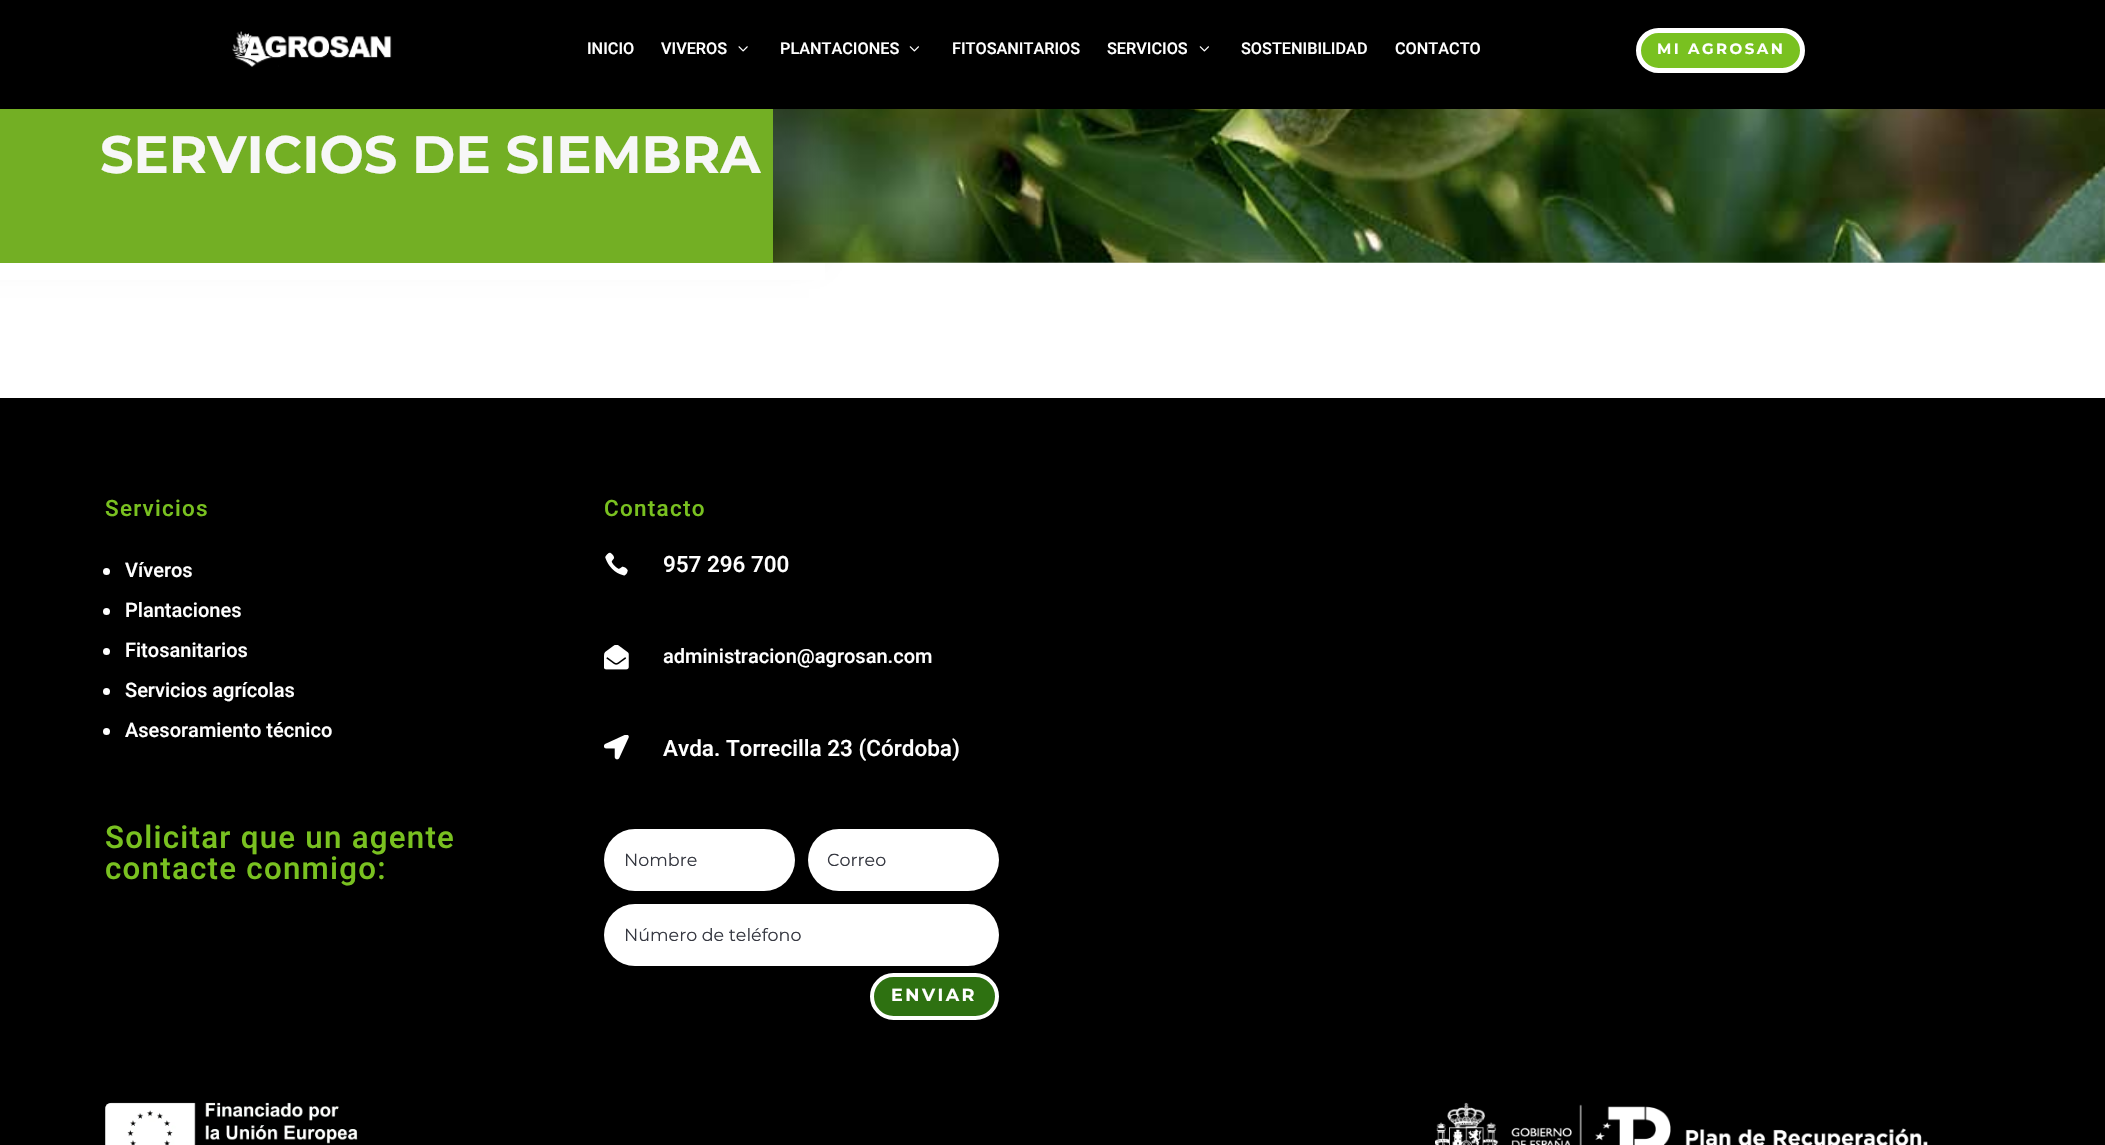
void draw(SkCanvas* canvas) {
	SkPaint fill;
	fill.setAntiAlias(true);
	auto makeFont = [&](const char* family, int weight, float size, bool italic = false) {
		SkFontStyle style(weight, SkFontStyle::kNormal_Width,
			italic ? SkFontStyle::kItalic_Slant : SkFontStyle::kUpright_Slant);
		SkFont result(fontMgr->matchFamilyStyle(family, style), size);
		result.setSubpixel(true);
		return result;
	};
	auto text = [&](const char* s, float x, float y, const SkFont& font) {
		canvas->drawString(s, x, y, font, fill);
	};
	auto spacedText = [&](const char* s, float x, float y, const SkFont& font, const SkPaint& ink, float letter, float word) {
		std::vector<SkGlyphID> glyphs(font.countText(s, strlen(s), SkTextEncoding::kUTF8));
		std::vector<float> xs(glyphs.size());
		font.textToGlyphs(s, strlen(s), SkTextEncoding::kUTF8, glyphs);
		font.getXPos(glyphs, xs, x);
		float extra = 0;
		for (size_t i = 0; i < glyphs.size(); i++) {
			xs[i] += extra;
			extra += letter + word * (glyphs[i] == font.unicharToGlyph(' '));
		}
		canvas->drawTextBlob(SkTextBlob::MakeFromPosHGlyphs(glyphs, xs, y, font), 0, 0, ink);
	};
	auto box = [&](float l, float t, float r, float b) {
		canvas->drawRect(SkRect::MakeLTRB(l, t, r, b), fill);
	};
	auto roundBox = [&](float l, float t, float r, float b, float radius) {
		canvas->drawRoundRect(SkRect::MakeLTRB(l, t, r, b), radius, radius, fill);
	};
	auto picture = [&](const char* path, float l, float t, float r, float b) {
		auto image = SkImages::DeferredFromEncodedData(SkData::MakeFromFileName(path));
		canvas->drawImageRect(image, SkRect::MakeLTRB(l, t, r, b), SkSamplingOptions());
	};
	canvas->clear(0xFFFFFFFF);
	picture("image3.png", 773, 109, 2105, 263);
	fill.setColor(0x4D000000);
	fill.setMaskFilter(SkMaskFilter::MakeBlur(kNormal_SkBlurStyle, 15));
	canvas->drawRect(SkRect::MakeLTRB(-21, -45, 809, 253), fill);
	fill.setMaskFilter(nullptr);
	fill.setColor(0xFF000000);
	box(0, 0, 2105, 109);
	picture("image0.png", 232, 31, 392, 67);
	picture("image1.png", 738, 46, 748, 52);
	picture("image2.png", 909, 46, 919, 52);
	picture("image2.png", 1199, 46, 1209, 52);
	fill.setColor(0xFF79C120);
	canvas->drawRoundRect(SkRect::MakeLTRB(1638.5f, 30.5f, 1802.5f, 70.5f), 20, 20, fill);
	fill.setStyle(SkPaint::kStroke_Style);
	fill.setStrokeWidth(5);
	fill.setColor(0xFFFFFFFF);
	canvas->drawRoundRect(SkRect::MakeLTRB(1638.5f, 30.5f, 1802.5f, 70.5f), 20, 20, fill);
	fill.setStyle(SkPaint::kFill_Style);
	fill.setColor(0xFF73AF24);
	box(0, 109, 773, 263);
	fill.setColor(0xFFFFFFFF);
	box(0, 263, 825, 280);
	fill.setColor(0xFF000000);
	box(0, 398, 2105, 1145);
	fill.setColor(0xFFFFFFFF);
	canvas->drawCircle(106.5f, 571.5f, 3.5f, fill);
	canvas->drawCircle(106.5f, 611.5f, 3.5f, fill);
	canvas->drawCircle(106.5f, 651.5f, 3.5f, fill);
	canvas->drawCircle(106.5f, 691.5f, 3.5f, fill);
	canvas->drawCircle(106.5f, 731.5f, 3.5f, fill);
	picture("image4.png", 605, 552, 628, 576);
	picture("image5.png", 604, 645, 629, 670);
	picture("image6.png", 604, 735, 629, 760);
	roundBox(604, 829, 795, 891, 31);
	roundBox(808, 829, 999, 891, 31);
	roundBox(604, 904, 999, 966, 31);
	fill.setColor(0xFF2E7111);
	canvas->drawRoundRect(SkRect::MakeLTRB(872, 975, 997, 1018), 21.5f, 21.5f, fill);
	fill.setStyle(SkPaint::kStroke_Style);
	fill.setStrokeWidth(4);
	fill.setColor(0xFFFFFFFF);
	canvas->drawRoundRect(SkRect::MakeLTRB(872, 975, 997, 1018), 21.5f, 21.5f, fill);
	picture("image7.png", 105, 1102, 358, 1145);
	picture("image8.png", 1435, 1102, 1928, 1145);
	auto font1 = makeFont("Heebo", 500, 16.25f);
	fill.setStyle(SkPaint::kFill_Style);
	text("INICIO", 587, 54, font1);
	text("VIVEROS", 661, 54, font1);
	text("PLANTACIONES", 780, 54, font1);
	text("FITOSANITARIOS", 952, 54, font1);
	text("SERVICIOS", 1107, 54, font1);
	text("SOSTENIBILIDAD", 1241, 54, font1);
	text("CONTACTO", 1395, 54, font1);
	auto font2 = makeFont("Montserrat", 700, 15);
	spacedText("MI AGROSAN", 1657, 54, font2, fill, 2.5f, 0);
	auto font3 = makeFont("Montserrat", 700, 52.5f);
	fill.setColor(0xFFF7F7F7);
	text("SERVICIOS DE SIEMBRA", 100, 173, font3);
	auto font4 = makeFont("Heebo", 500, 22.5f);
	fill.setColor(0xFF79C120);
	spacedText("Servicios", 105, 516, font4, fill, 1.25f, 0);
	auto font5 = makeFont("Heebo", 500, 20);
	fill.setColor(0xFFFFFFFF);
	text("Víveros", 125, 577, font5);
	text("Plantaciones", 125, 617, font5);
	text("Fitosanitarios", 125, 657, font5);
	text("Servicios agrícolas", 125, 697, font5);
	text("Asesoramiento técnico", 125, 737, font5);
	auto font6 = makeFont("Heebo", 500, 31.25f);
	fill.setColor(0xFF79C120);
	spacedText("Solicitar que un agente", 105, 848, font6, fill, 1.25f, 0);
	spacedText("contacte conmigo:", 105, 879, font6, fill, 1.25f, 0);
	spacedText("Contacto", 604, 516, font4, fill, 1.25f, 0);
	fill.setColor(0xFFFFFFFF);
	text("957 296 700", 663, 572, font4);
	text("administracion@agrosan.com", 663, 663, font5);
	text("Avda. Torrecilla 23 (Córdoba)", 663, 756, font4);
	auto font7 = makeFont("Montserrat", 400, 17.5f);
	fill.setColor(0xFF353740);
	text("Nombre", 624, 866, font7);
	text("Correo", 827, 866, font7);
	text("Número de teléfono", 624, 941, font7);
	auto font8 = makeFont("Montserrat", 700, 17.5f);
	fill.setColor(0xFFFFFFFF);
	spacedText("ENVIAR", 891, 1001, font8, fill, 2.5f, 0);
}
